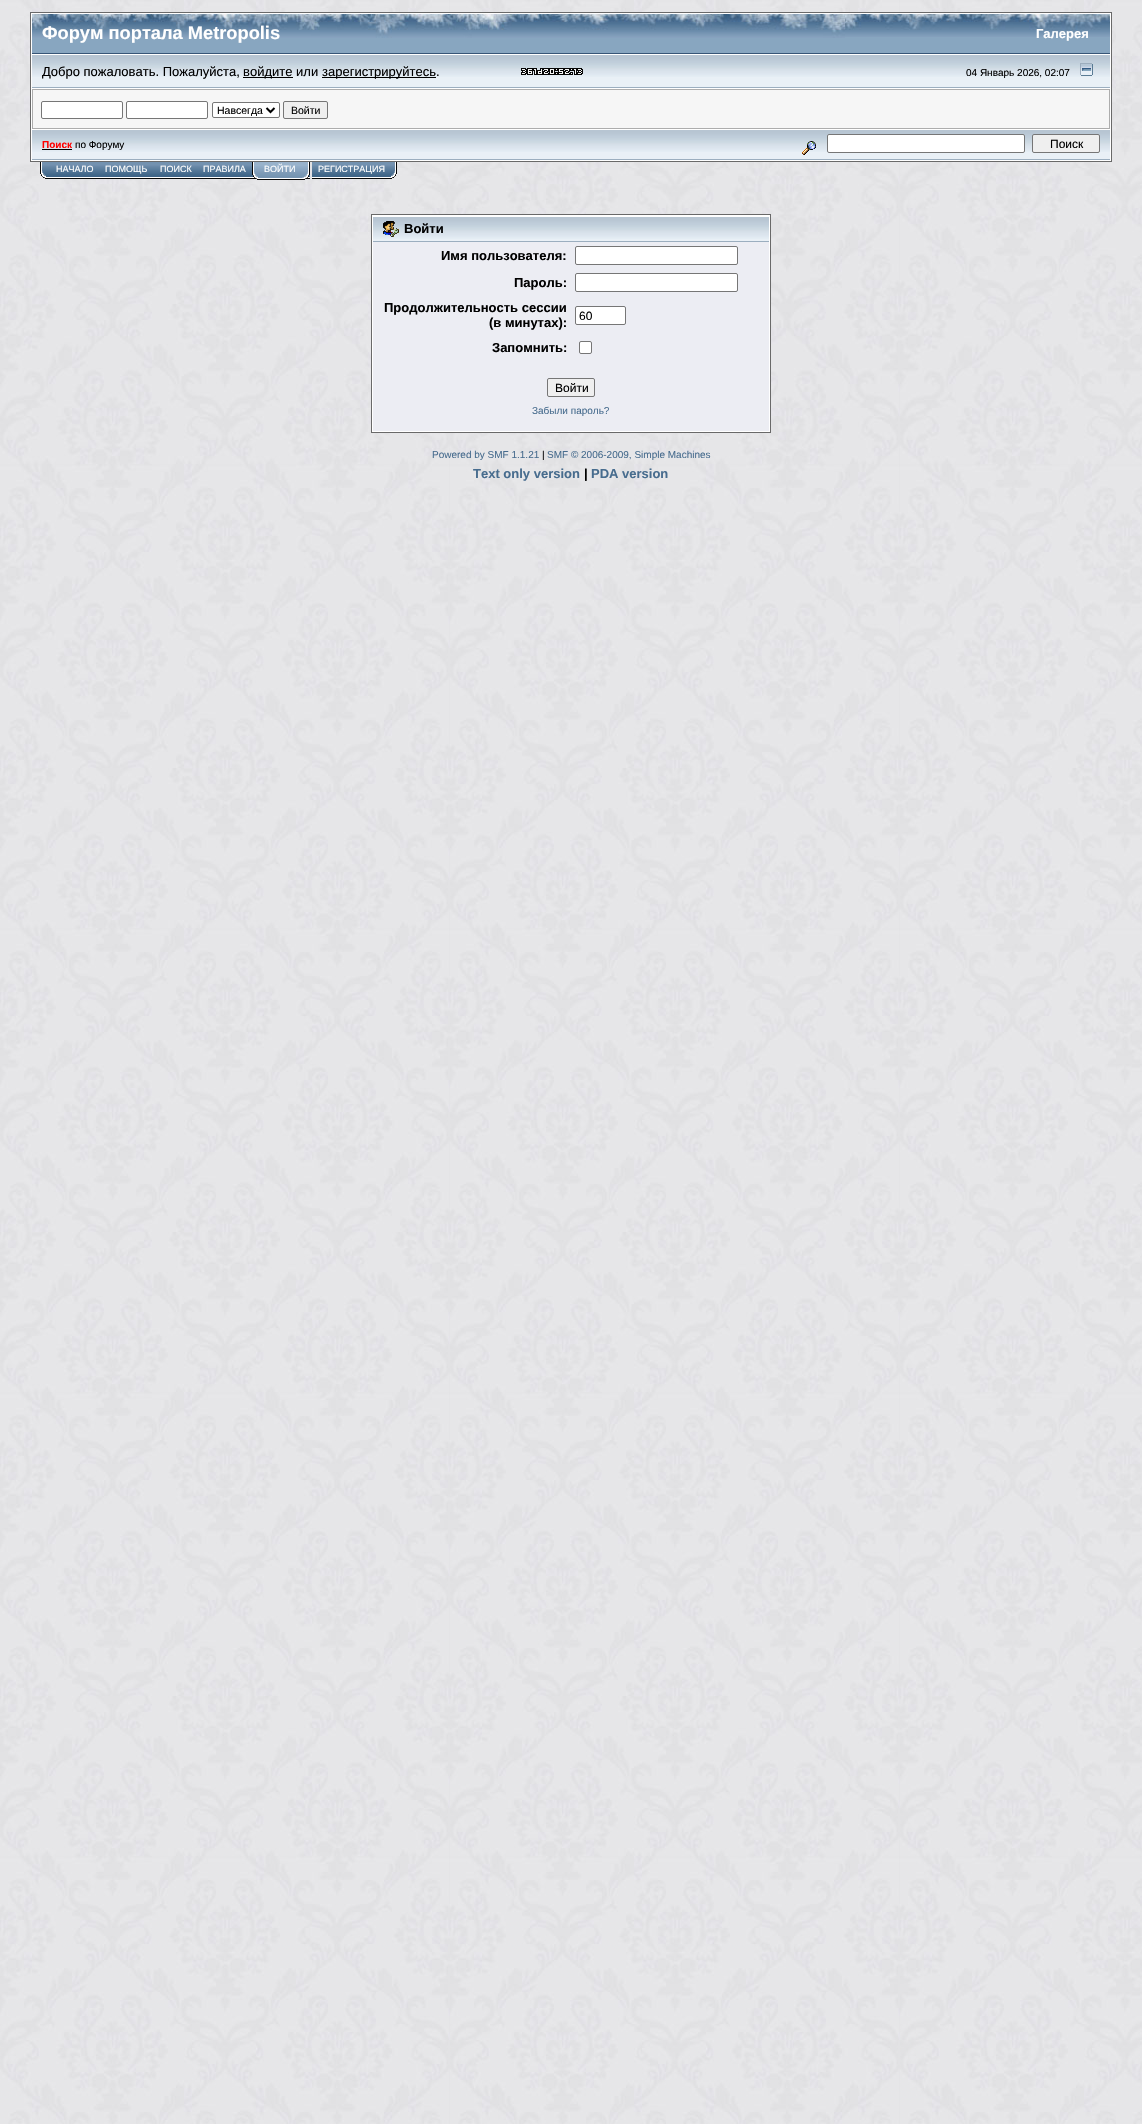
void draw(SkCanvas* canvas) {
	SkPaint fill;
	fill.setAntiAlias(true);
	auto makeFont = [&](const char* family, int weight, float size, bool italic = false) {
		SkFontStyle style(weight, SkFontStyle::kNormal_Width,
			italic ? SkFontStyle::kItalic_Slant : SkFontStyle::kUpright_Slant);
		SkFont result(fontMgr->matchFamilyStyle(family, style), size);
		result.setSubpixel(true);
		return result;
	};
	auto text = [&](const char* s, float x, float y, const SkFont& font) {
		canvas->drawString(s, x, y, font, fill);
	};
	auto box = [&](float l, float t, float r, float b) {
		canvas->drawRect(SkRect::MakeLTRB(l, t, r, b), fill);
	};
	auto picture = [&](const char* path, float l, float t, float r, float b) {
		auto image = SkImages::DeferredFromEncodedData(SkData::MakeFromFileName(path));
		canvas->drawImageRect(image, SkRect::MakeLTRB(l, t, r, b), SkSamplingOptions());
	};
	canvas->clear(0xFFFFFFFF);
	picture("image0.png", 0, 0, 1142, 2124);
	fill.setColor(0xFFFFFFFF);
	canvas->drawRect(SkRect::MakeLTRB(30.5f, 12.5f, 1111.5f, 161.5f), fill);
	fill.setStyle(SkPaint::kStroke_Style);
	fill.setStrokeWidth(1);
	fill.setColor(0xFF696969);
	canvas->drawRect(SkRect::MakeLTRB(30.5f, 12.5f, 1111.5f, 161.5f), fill);
	fill.setStyle(SkPaint::kFill_Style);
	fill.setColor(0xFF88A6C0);
	box(32, 38, 845, 53);
	picture("image1.png", 32, 14, 845, 38);
	fill.setColor(0xFF375576);
	box(32, 53, 1110, 54);
	fill.setColor(0xFF88A6C0);
	box(845, 37, 1110, 53);
	picture("image2.png", 845, 14, 1110, 37);
	fill.setColor(0xFFE9F0F6);
	box(32, 77, 1110, 87);
	picture("image3.png", 32, 55, 463, 77);
	fill.setColor(0xFF9BAEBF);
	box(32, 87, 1110, 88);
	fill.setColor(0xFF000000);
	box(243, 77, 293, 78);
	box(322, 77, 436, 78);
	picture("image4.png", 463, 55, 679, 77);
	picture("image5.png", 521, 68, 527, 75);
	picture("image6.png", 527, 68, 533, 75);
	picture("image7.png", 533, 68, 537, 75);
	picture("image8.png", 537, 68, 543, 75);
	picture("image9.png", 543, 68, 549, 75);
	picture("image10.png", 549, 68, 555, 75);
	picture("image11.png", 555, 68, 558, 75);
	picture("image12.png", 558, 68, 564, 75);
	picture("image9.png", 564, 68, 570, 75);
	picture("image11.png", 570, 68, 573, 75);
	picture("image7.png", 573, 68, 577, 75);
	picture("image5.png", 577, 68, 583, 75);
	picture("image3.png", 679, 55, 1110, 77);
	picture("image13.png", 1080, 63, 1093, 76);
	fill.setColor(0xFFADADAD);
	box(32, 89, 1110, 129);
	fill.setColor(0xFFF6F6F6);
	box(33, 90, 1109, 128);
	fill.setColor(0xFFFFFFFF);
	canvas->drawRoundRect(SkRect::MakeLTRB(41.5f, 101.5f, 122.5f, 118.5f), 1.5f, 1.5f, fill);
	fill.setStyle(SkPaint::kStroke_Style);
	fill.setColor(0xFF767676);
	canvas->drawRoundRect(SkRect::MakeLTRB(41.5f, 101.5f, 122.5f, 118.5f), 1.5f, 1.5f, fill);
	fill.setStyle(SkPaint::kFill_Style);
	fill.setColor(0xFFFFFFFF);
	canvas->drawRoundRect(SkRect::MakeLTRB(126.5f, 101.5f, 207.5f, 118.5f), 1.5f, 1.5f, fill);
	fill.setStyle(SkPaint::kStroke_Style);
	fill.setColor(0xFF767676);
	canvas->drawRoundRect(SkRect::MakeLTRB(126.5f, 101.5f, 207.5f, 118.5f), 1.5f, 1.5f, fill);
	fill.setStyle(SkPaint::kFill_Style);
	fill.setColor(0xFFFFFFFF);
	canvas->drawRoundRect(SkRect::MakeLTRB(212.5f, 102.5f, 279.5f, 117.5f), 1.5f, 1.5f, fill);
	fill.setStyle(SkPaint::kStroke_Style);
	fill.setColor(0xFF767676);
	canvas->drawRoundRect(SkRect::MakeLTRB(212.5f, 102.5f, 279.5f, 117.5f), 1.5f, 1.5f, fill);
	fill.setStrokeWidth(2);
	fill.setColor(0xFF000000);
	canvas->drawPath(SkPathBuilder().moveTo(266.5f, 108).lineTo(270.5f, 112).lineTo(274.5f, 108).detach(), fill);
	fill.setStyle(SkPaint::kFill_Style);
	fill.setColor(0xFFEFEFEF);
	canvas->drawRoundRect(SkRect::MakeLTRB(283.5f, 101.5f, 327.5f, 118.5f), 1.5f, 1.5f, fill);
	fill.setStyle(SkPaint::kStroke_Style);
	fill.setStrokeWidth(1);
	fill.setColor(0xFF767676);
	canvas->drawRoundRect(SkRect::MakeLTRB(283.5f, 101.5f, 327.5f, 118.5f), 1.5f, 1.5f, fill);
	fill.setStyle(SkPaint::kFill_Style);
	fill.setColor(0xFFE9F0F6);
	box(32, 152, 1110, 159);
	picture("image14.png", 32, 130, 785, 152);
	fill.setColor(0xFF9BAEBF);
	box(32, 159, 1110, 160);
	fill.setColor(0xFF000000);
	box(42, 149, 72, 150);
	picture("image15.png", 785, 130, 1110, 152);
	picture("image16.png", 802, 141, 816, 155);
	fill.setColor(0xFFFFFFFF);
	canvas->drawRoundRect(SkRect::MakeLTRB(827.5f, 134.5f, 1024.5f, 152.5f), 1.5f, 1.5f, fill);
	fill.setStyle(SkPaint::kStroke_Style);
	fill.setColor(0xFF767676);
	canvas->drawRoundRect(SkRect::MakeLTRB(827.5f, 134.5f, 1024.5f, 152.5f), 1.5f, 1.5f, fill);
	fill.setStyle(SkPaint::kFill_Style);
	fill.setColor(0xFFEFEFEF);
	canvas->drawRoundRect(SkRect::MakeLTRB(1032.5f, 134.5f, 1099.5f, 152.5f), 1.5f, 1.5f, fill);
	fill.setStyle(SkPaint::kStroke_Style);
	fill.setColor(0xFF767676);
	canvas->drawRoundRect(SkRect::MakeLTRB(1032.5f, 134.5f, 1099.5f, 152.5f), 1.5f, 1.5f, fill);
	picture("image17.png", 40, 162, 50, 179);
	picture("image18.png", 50, 162, 99, 179);
	picture("image19.png", 99, 162, 154, 179);
	picture("image20.png", 154, 162, 197, 179);
	picture("image19.png", 197, 162, 252, 179);
	picture("image21.png", 252, 162, 258, 180);
	picture("image22.png", 258, 162, 302, 180);
	picture("image23.png", 302, 162, 310, 180);
	picture("image24.png", 312, 162, 391, 179);
	picture("image25.png", 391, 162, 397, 179);
	fill.setStyle(SkPaint::kFill_Style);
	fill.setColor(0xFFFFFFFF);
	canvas->drawRect(SkRect::MakeLTRB(371.5f, 214.5f, 770.5f, 432.5f), fill);
	fill.setStyle(SkPaint::kStroke_Style);
	fill.setColor(0xFF696969);
	canvas->drawRect(SkRect::MakeLTRB(371.5f, 214.5f, 770.5f, 432.5f), fill);
	fill.setStyle(SkPaint::kFill_Style);
	fill.setColor(0xFFE9F0F6);
	box(373, 239, 769, 241);
	picture("image26.png", 373, 217, 769, 239);
	fill.setColor(0xFF9BAEBF);
	box(373, 241, 769, 242);
	picture("image27.png", 383, 221, 399, 237);
	fill.setColor(0xFFECEDF3);
	box(373, 242, 769, 431);
	fill.setColor(0xFFFFFFFF);
	canvas->drawRoundRect(SkRect::MakeLTRB(575.5f, 246.5f, 737.5f, 264.5f), 1.5f, 1.5f, fill);
	fill.setStyle(SkPaint::kStroke_Style);
	fill.setColor(0xFF767676);
	canvas->drawRoundRect(SkRect::MakeLTRB(575.5f, 246.5f, 737.5f, 264.5f), 1.5f, 1.5f, fill);
	fill.setStyle(SkPaint::kFill_Style);
	fill.setColor(0xFFFFFFFF);
	canvas->drawRoundRect(SkRect::MakeLTRB(575.5f, 273.5f, 737.5f, 291.5f), 1.5f, 1.5f, fill);
	fill.setStyle(SkPaint::kStroke_Style);
	fill.setColor(0xFF767676);
	canvas->drawRoundRect(SkRect::MakeLTRB(575.5f, 273.5f, 737.5f, 291.5f), 1.5f, 1.5f, fill);
	fill.setStyle(SkPaint::kFill_Style);
	fill.setColor(0xFFFFFFFF);
	canvas->drawRoundRect(SkRect::MakeLTRB(575.5f, 306.5f, 625.5f, 324.5f), 1.5f, 1.5f, fill);
	fill.setStyle(SkPaint::kStroke_Style);
	fill.setColor(0xFF767676);
	canvas->drawRoundRect(SkRect::MakeLTRB(575.5f, 306.5f, 625.5f, 324.5f), 1.5f, 1.5f, fill);
	fill.setStyle(SkPaint::kFill_Style);
	fill.setColor(0xFFFFFFFF);
	canvas->drawRoundRect(SkRect::MakeLTRB(579.5f, 341.5f, 591.5f, 353.5f), 1.5f, 1.5f, fill);
	fill.setStyle(SkPaint::kStroke_Style);
	fill.setColor(0xFF767676);
	canvas->drawRoundRect(SkRect::MakeLTRB(579.5f, 341.5f, 591.5f, 353.5f), 1.5f, 1.5f, fill);
	fill.setStyle(SkPaint::kFill_Style);
	fill.setColor(0xFFEFEFEF);
	canvas->drawRoundRect(SkRect::MakeLTRB(547.5f, 378.5f, 594.5f, 396.5f), 1.5f, 1.5f, fill);
	fill.setStyle(SkPaint::kStroke_Style);
	fill.setColor(0xFF767676);
	canvas->drawRoundRect(SkRect::MakeLTRB(547.5f, 378.5f, 594.5f, 396.5f), 1.5f, 1.5f, fill);
	auto font1 = makeFont("Liberation Sans", 700, 18.25f);
	fill.setStyle(SkPaint::kFill_Style);
	fill.setColor(0xFFFFFFFF);
	text("Форум портала Metropolis", 42, 39, font1);
	auto font2 = makeFont("Liberation Sans", 700, 13);
	text("Галерея", 1036, 38, font2);
	auto font3 = makeFont("Liberation Sans", 400, 13);
	fill.setColor(0xFF000000);
	text("Добро пожаловать. Пожалуйста,", 42, 76, font3);
	text("войдите или", 243, 76, font3);
	text("зарегистрируйтесь.", 322, 76, font3);
	auto font4 = makeFont("Liberation Sans", 400, 10);
	text("04 Январь 2026, 02:07", 966, 76, font4);
	auto font5 = makeFont("Liberation Sans", 400, 10.5f);
	text("Навсегда", 217, 114, font5);
	text("Войти", 291, 114, font5);
	auto font6 = makeFont("Liberation Sans", 700, 10);
	fill.setColor(0xFFFF0000);
	text("Поиск", 42, 148, font6);
	fill.setColor(0xFF000000);
	text("по Форуму", 75, 148, font4);
	auto font7 = makeFont("Liberation Sans", 400, 12);
	text("Поиск", 1050, 148, font7);
	auto font8 = makeFont("Liberation Sans", 400, 9);
	fill.setColor(0xFFFFFFFF);
	text("НАЧАЛО", 56, 172, font8);
	text("ПОМОЩЬ", 105, 172, font8);
	text("ПОИСК", 160, 172, font8);
	text("ПРАВИЛА", 203, 172, font8);
	text("ВОЙТИ", 264, 172, font8);
	text("РЕГИСТРАЦИЯ", 318, 172, font8);
	fill.setColor(0xFF000000);
	text("Войти", 404, 233, font2);
	text("Имя пользователя:", 441, 260, font2);
	text("Пароль:", 514, 287, font2);
	text("Продолжительность сессии", 384, 312, font2);
	text("(в минутах):", 489, 327, font2);
	text("60", 579, 320, font7);
	text("Запомнить:", 492, 352, font2);
	text("Войти", 555, 392, font7);
	fill.setColor(0xFF476C8E);
	text("Забыли пароль?", 532, 414, font4);
	text("Powered by SMF 1.1.21", 432, 458, font4);
	fill.setColor(0xFF000000);
	text("|", 542, 458, font4);
	fill.setColor(0xFF476C8E);
	text("SMF © 2006-2009, Simple Machines", 547, 458, font4);
	text("Text only version", 473, 478, font2);
	fill.setColor(0xFF000000);
	text("|", 584, 478, font2);
	fill.setColor(0xFF476C8E);
	text("PDA version", 591, 478, font2);
}
